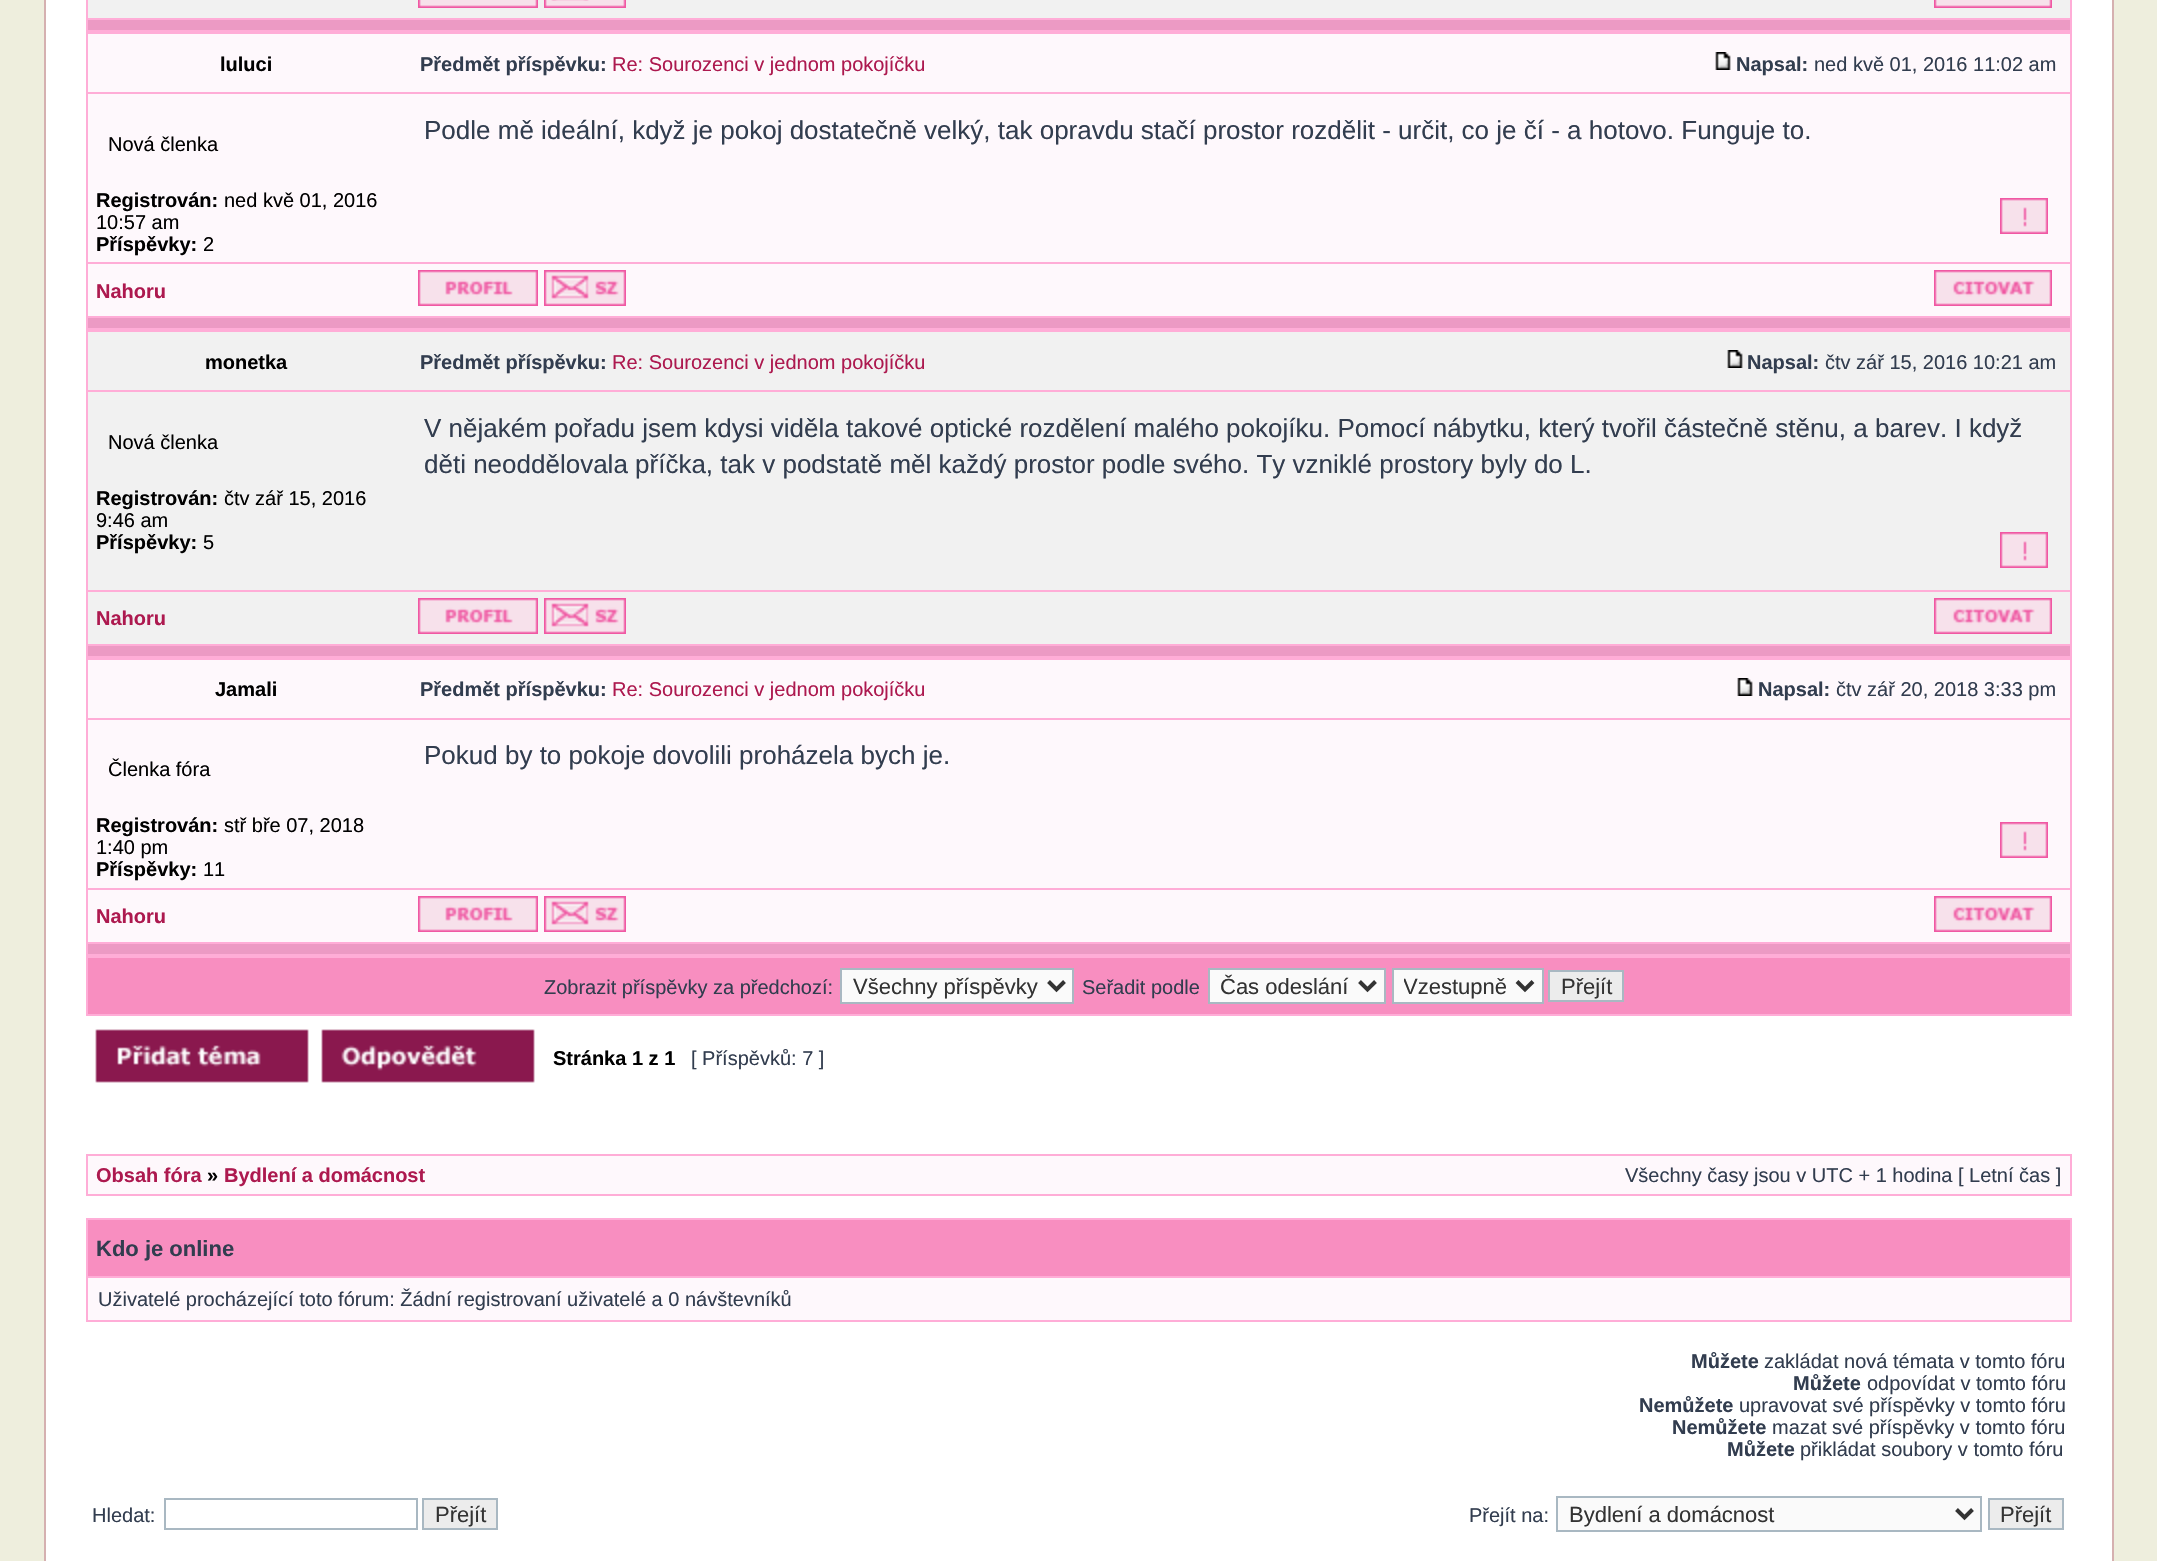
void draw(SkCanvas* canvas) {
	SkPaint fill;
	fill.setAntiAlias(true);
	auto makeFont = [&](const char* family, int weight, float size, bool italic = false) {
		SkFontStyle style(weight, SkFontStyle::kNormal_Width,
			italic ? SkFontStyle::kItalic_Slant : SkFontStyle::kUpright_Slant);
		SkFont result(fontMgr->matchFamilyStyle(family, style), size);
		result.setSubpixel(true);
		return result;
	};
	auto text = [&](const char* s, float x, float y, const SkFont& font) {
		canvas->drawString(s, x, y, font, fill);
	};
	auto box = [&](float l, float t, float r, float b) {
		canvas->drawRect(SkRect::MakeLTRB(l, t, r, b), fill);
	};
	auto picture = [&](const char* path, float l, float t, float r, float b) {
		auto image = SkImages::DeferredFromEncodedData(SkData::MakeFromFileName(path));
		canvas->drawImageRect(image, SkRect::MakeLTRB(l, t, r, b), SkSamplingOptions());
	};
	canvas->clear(0xFFEEEEDD);
	fill.setColor(0xFFFFFFFF);
	box(46, 0, 2112, 1561);
	fill.setColor(0xFFD5B0B0);
	box(2112, 0, 2114, 1561);
	box(44, 0, 46, 1561);
	fill.setColor(0xFFFFADD7);
	box(86, 0, 2072, 1016);
	fill.setColor(0xFFF1F1F1);
	box(88, 0, 2070, 18);
	picture("image0.png", 418, 0, 538, 8);
	picture("image1.png", 544, 0, 626, 8);
	picture("image2.png", 1934, 0, 2052, 8);
	fill.setColor(0xFFEC9AC4);
	box(88, 20, 2070, 30);
	fill.setColor(0xFFFEF8FC);
	box(88, 34, 2070, 92);
	picture("image3.png", 1715, 52, 1731, 70);
	box(88, 94, 2070, 262);
	picture("image4.png", 2000, 198, 2048, 234);
	box(88, 264, 2070, 316);
	picture("image5.png", 418, 270, 538, 306);
	picture("image6.png", 544, 270, 626, 306);
	picture("image7.png", 1934, 270, 2052, 306);
	fill.setColor(0xFFEC9AC4);
	box(88, 318, 2070, 328);
	fill.setColor(0xFFF1F1F1);
	box(88, 332, 2070, 390);
	picture("image8.png", 1727, 350, 1743, 368);
	box(88, 392, 2070, 590);
	picture("image4.png", 2000, 532, 2048, 568);
	box(88, 592, 2070, 644);
	picture("image5.png", 418, 598, 538, 634);
	picture("image6.png", 544, 598, 626, 634);
	picture("image7.png", 1934, 598, 2052, 634);
	fill.setColor(0xFFEC9AC4);
	box(88, 646, 2070, 656);
	fill.setColor(0xFFFEF8FC);
	box(88, 660, 2070, 718);
	picture("image3.png", 1737, 678, 1753, 696);
	box(88, 720, 2070, 888);
	picture("image4.png", 2000, 822, 2048, 858);
	box(88, 890, 2070, 942);
	picture("image5.png", 418, 896, 538, 932);
	picture("image6.png", 544, 896, 626, 932);
	picture("image7.png", 1934, 896, 2052, 932);
	fill.setColor(0xFFEC9AC4);
	box(88, 944, 2070, 954);
	fill.setColor(0xFFF88EC0);
	box(88, 958, 2070, 1014);
	fill.setColor(0xFFFAFAFA);
	canvas->drawRect(SkRect::MakeLTRB(841, 969, 1073, 1003), fill);
	fill.setStyle(SkPaint::kStroke_Style);
	fill.setStrokeWidth(2);
	fill.setColor(0xFFA9B8C2);
	canvas->drawRect(SkRect::MakeLTRB(841, 969, 1073, 1003), fill);
	fill.setStrokeWidth(4);
	fill.setColor(0xFF333333);
	canvas->drawPath(SkPathBuilder().moveTo(1048.5f, 981.5f).lineTo(1056.5f, 989.5f).lineTo(1064.5f, 981.5f).detach(), fill);
	fill.setStyle(SkPaint::kFill_Style);
	fill.setColor(0xFFFAFAFA);
	canvas->drawRect(SkRect::MakeLTRB(1209, 969, 1385, 1003), fill);
	fill.setStyle(SkPaint::kStroke_Style);
	fill.setStrokeWidth(2);
	fill.setColor(0xFFA9B8C2);
	canvas->drawRect(SkRect::MakeLTRB(1209, 969, 1385, 1003), fill);
	fill.setStrokeWidth(4);
	fill.setColor(0xFF333333);
	canvas->drawPath(SkPathBuilder().moveTo(1359.5f, 981.5f).lineTo(1367.5f, 989.5f).lineTo(1375.5f, 981.5f).detach(), fill);
	fill.setStyle(SkPaint::kFill_Style);
	fill.setColor(0xFFFAFAFA);
	canvas->drawRect(SkRect::MakeLTRB(1393, 969, 1543, 1003), fill);
	fill.setStyle(SkPaint::kStroke_Style);
	fill.setStrokeWidth(2);
	fill.setColor(0xFFA9B8C2);
	canvas->drawRect(SkRect::MakeLTRB(1393, 969, 1543, 1003), fill);
	fill.setStrokeWidth(4);
	fill.setColor(0xFF333333);
	canvas->drawPath(SkPathBuilder().moveTo(1517, 981.5f).lineTo(1525, 989.5f).lineTo(1533, 981.5f).detach(), fill);
	fill.setStyle(SkPaint::kFill_Style);
	fill.setColor(0xFFECECEC);
	canvas->drawRect(SkRect::MakeLTRB(1549, 971, 1623, 1001), fill);
	fill.setStyle(SkPaint::kStroke_Style);
	fill.setStrokeWidth(2);
	fill.setColor(0xFFA9B8C2);
	canvas->drawRect(SkRect::MakeLTRB(1549, 971, 1623, 1001), fill);
	picture("image9.png", 95, 1029, 309, 1083);
	picture("image10.png", 321, 1029, 535, 1083);
	fill.setStyle(SkPaint::kFill_Style);
	fill.setColor(0xFFFFADD7);
	box(86, 1154, 2072, 1196);
	fill.setColor(0xFFFEF8FC);
	box(88, 1156, 2070, 1194);
	fill.setColor(0xFFFFADD7);
	box(86, 1218, 2072, 1322);
	fill.setColor(0xFFF88EC0);
	box(88, 1220, 2070, 1276);
	fill.setColor(0xFFFEF8FC);
	box(88, 1278, 2070, 1320);
	fill.setStyle(SkPaint::kStroke_Style);
	fill.setColor(0xFFA9B8C2);
	canvas->drawRect(SkRect::MakeLTRB(165, 1499, 417, 1529), fill);
	fill.setStyle(SkPaint::kFill_Style);
	fill.setColor(0xFFECECEC);
	canvas->drawRect(SkRect::MakeLTRB(423, 1499, 497, 1529), fill);
	fill.setStyle(SkPaint::kStroke_Style);
	fill.setColor(0xFFA9B8C2);
	canvas->drawRect(SkRect::MakeLTRB(423, 1499, 497, 1529), fill);
	fill.setStyle(SkPaint::kFill_Style);
	fill.setColor(0xFFFAFAFA);
	canvas->drawRect(SkRect::MakeLTRB(1557, 1497, 1981, 1531), fill);
	fill.setStyle(SkPaint::kStroke_Style);
	fill.setColor(0xFFA9B8C2);
	canvas->drawRect(SkRect::MakeLTRB(1557, 1497, 1981, 1531), fill);
	fill.setStrokeWidth(4);
	fill.setColor(0xFF333333);
	canvas->drawPath(SkPathBuilder().moveTo(1956.5f, 1509.5f).lineTo(1964.5f, 1517.5f).lineTo(1972.5f, 1509.5f).detach(), fill);
	fill.setStyle(SkPaint::kFill_Style);
	fill.setColor(0xFFECECEC);
	canvas->drawRect(SkRect::MakeLTRB(1989, 1499, 2063, 1529), fill);
	fill.setStyle(SkPaint::kStroke_Style);
	fill.setStrokeWidth(2);
	fill.setColor(0xFFA9B8C2);
	canvas->drawRect(SkRect::MakeLTRB(1989, 1499, 2063, 1529), fill);
	auto font1 = makeFont("Liberation Sans", 700, 20);
	fill.setStyle(SkPaint::kFill_Style);
	fill.setColor(0xFF000000);
	text("luluci", 220, 71, font1);
	fill.setColor(0xFF323D4F);
	text("Předmět příspěvku:", 420, 71, font1);
	auto font2 = makeFont("Liberation Sans", 400, 20);
	fill.setColor(0xFFAD194F);
	text("Re: Sourozenci v jednom pokojíčku", 612, 71, font2);
	fill.setColor(0xFF323D4F);
	text("Napsal:", 1736, 71, font1);
	text("ned kvě 01, 2016 11:02 am", 1814, 71, font2);
	auto font3 = makeFont("Liberation Sans", 400, 26);
	text("Podle mě ideální, když je pokoj dostatečně velký, tak opravdu stačí prostor rozdělit - určit, co je čí - a hotovo. Funguje to.", 424, 139, font3);
	fill.setColor(0xFF000000);
	text("Nová členka", 108, 151, font2);
	text("Registrován:", 96, 207, font1);
	text("ned kvě 01, 2016", 224, 207, font2);
	text("10:57 am", 96, 229, font2);
	text("Příspěvky:", 96, 251, font1);
	text("2", 203, 251, font2);
	fill.setColor(0xFFAD194F);
	text("Nahoru", 96, 298, font1);
	fill.setColor(0xFF000000);
	text("monetka", 205, 369, font1);
	fill.setColor(0xFF323D4F);
	text("Předmět příspěvku:", 420, 369, font1);
	fill.setColor(0xFFAD194F);
	text("Re: Sourozenci v jednom pokojíčku", 612, 369, font2);
	fill.setColor(0xFF323D4F);
	text("Napsal:", 1747, 369, font1);
	text("čtv zář 15, 2016 10:21 am", 1825, 369, font2);
	fill.setColor(0xFF000000);
	text("Nová členka", 108, 449, font2);
	text("Registrován:", 96, 505, font1);
	text("čtv zář 15, 2016", 224, 505, font2);
	text("9:46 am", 96, 527, font2);
	text("Příspěvky:", 96, 549, font1);
	text("5", 203, 549, font2);
	fill.setColor(0xFF323D4F);
	text("V nějakém pořadu jsem kdysi viděla takové optické rozdělení malého pokojíku. Pomocí nábytku, který tvořil částečně stěnu, a barev. I když", 424, 437, font3);
	text("děti neoddělovala příčka, tak v podstatě měl každý prostor podle svého. Ty vzniklé prostory byly do L.", 424, 473, font3);
	fill.setColor(0xFFAD194F);
	text("Nahoru", 96, 625, font1);
	fill.setColor(0xFF000000);
	text("Jamali", 215, 696, font1);
	fill.setColor(0xFF323D4F);
	text("Předmět příspěvku:", 420, 696, font1);
	fill.setColor(0xFFAD194F);
	text("Re: Sourozenci v jednom pokojíčku", 612, 696, font2);
	fill.setColor(0xFF323D4F);
	text("Napsal:", 1758, 696, font1);
	text("čtv zář 20, 2018 3:33 pm", 1836, 696, font2);
	fill.setColor(0xFF000000);
	text("Členka fóra", 108, 776, font2);
	text("Registrován:", 96, 832, font1);
	text("stř bře 07, 2018", 224, 832, font2);
	text("1:40 pm", 96, 854, font2);
	text("Příspěvky:", 96, 876, font1);
	text("11", 203, 876, font2);
	fill.setColor(0xFF323D4F);
	text("Pokud by to pokoje dovolili proházela bych je.", 424, 764, font3);
	fill.setColor(0xFFAD194F);
	text("Nahoru", 96, 923, font1);
	fill.setColor(0xFF323D4F);
	text("Zobrazit příspěvky za předchozí:", 544, 994, font2);
	auto font4 = makeFont("Liberation Sans", 400, 22);
	fill.setColor(0xFF333333);
	text("Všechny příspěvky", 853, 994, font4);
	fill.setColor(0xFF323D4F);
	text("Seřadit podle", 1082, 994, font2);
	fill.setColor(0xFF333333);
	text("Čas odeslání", 1220, 994, font4);
	canvas->save();
	canvas->clipRect(SkRect::MakeLTRB(1404, 972, 1508, 1000));
	text("Vzestupně", 1403, 994, font4);
	canvas->restore();
	text("Přejít", 1561, 994, font4);
	fill.setColor(0xFF000000);
	text("Stránka 1 z 1", 553, 1065, font1);
	fill.setColor(0xFF323D4F);
	text("[ Příspěvků: 7 ]", 691, 1065, font2);
	fill.setColor(0xFFAD194F);
	text("Obsah fóra", 96, 1182, font1);
	fill.setColor(0xFF000000);
	text("»", 207, 1182, font1);
	fill.setColor(0xFFAD194F);
	text("Bydlení a domácnost", 224, 1182, font1);
	fill.setColor(0xFF323D4F);
	text("Všechny časy jsou v UTC + 1 hodina [ Letní čas ]", 1625, 1182, font2);
	auto font5 = makeFont("Liberation Sans", 700, 22);
	text("Kdo je online", 96, 1256, font5);
	text("Uživatelé procházející toto fórum: Žádní registrovaní uživatelé a 0 návštevníků", 98, 1306, font2);
	text("Můžete", 1691, 1368, font1);
	text("zakládat nová témata v tomto fóru", 1764, 1368, font2);
	text("Můžete", 1793, 1390, font1);
	text("odpovídat v tomto fóru", 1867, 1390, font2);
	text("Nemůžete", 1639, 1412, font1);
	text("upravovat své příspěvky v tomto fóru", 1739, 1412, font2);
	text("Nemůžete", 1672, 1434, font1);
	text("mazat své příspěvky v tomto fóru", 1772, 1434, font2);
	text("Můžete", 1727, 1456, font1);
	text("přikládat soubory v tomto fóru", 1800, 1456, font2);
	text("Hledat:", 92, 1522, font2);
	fill.setColor(0xFF333333);
	text("Přejít", 435, 1522, font4);
	fill.setColor(0xFF323D4F);
	text("Přejít na:", 1469, 1522, font2);
	fill.setColor(0xFF333333);
	text("Bydlení a domácnost", 1569, 1522, font4);
	text("Přejít", 2000, 1522, font4);
}
